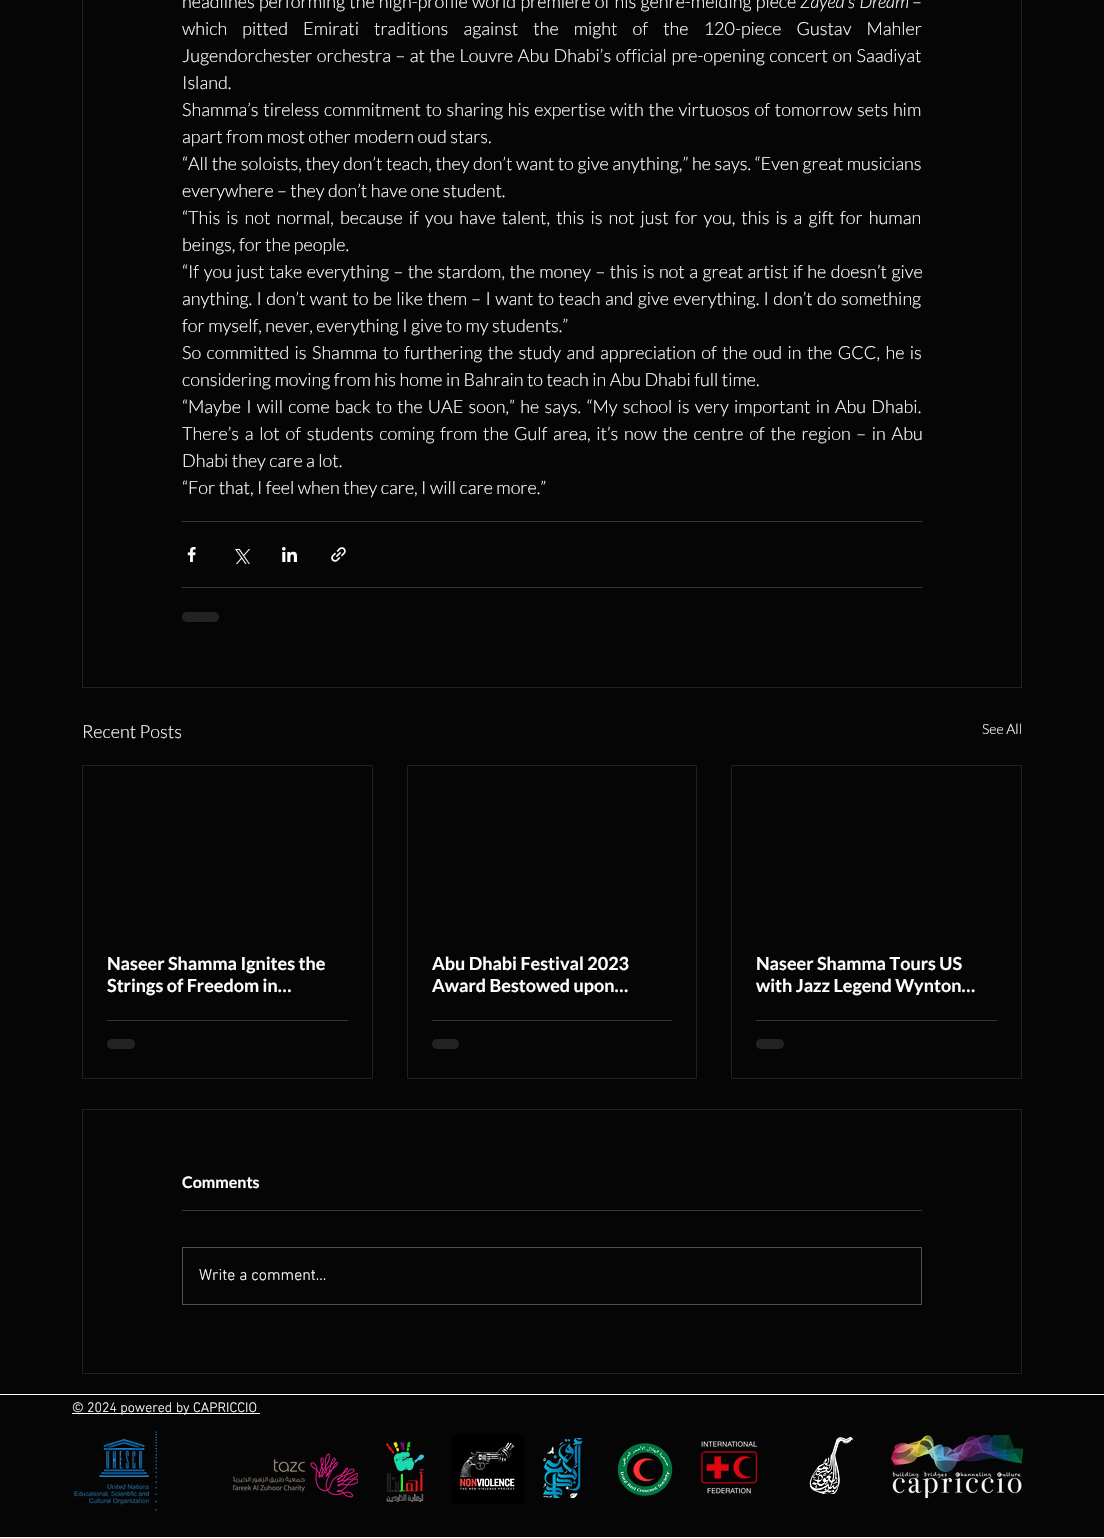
void draw(SkCanvas* canvas) {
	SkPaint fill;
	fill.setAntiAlias(true);
	auto makeFont = [&](const char* family, int weight, float size, bool italic = false) {
		SkFontStyle style(weight, SkFontStyle::kNormal_Width,
			italic ? SkFontStyle::kItalic_Slant : SkFontStyle::kUpright_Slant);
		SkFont result(fontMgr->matchFamilyStyle(family, style), size);
		result.setSubpixel(true);
		return result;
	};
	auto text = [&](const char* s, float x, float y, const SkFont& font) {
		canvas->drawString(s, x, y, font, fill);
	};
	auto spacedText = [&](const char* s, float x, float y, const SkFont& font, const SkPaint& ink, float letter, float word) {
		std::vector<SkGlyphID> glyphs(font.countText(s, strlen(s), SkTextEncoding::kUTF8));
		std::vector<float> xs(glyphs.size());
		font.textToGlyphs(s, strlen(s), SkTextEncoding::kUTF8, glyphs);
		font.getXPos(glyphs, xs, x);
		float extra = 0;
		for (size_t i = 0; i < glyphs.size(); i++) {
			xs[i] += extra;
			extra += letter + word * (glyphs[i] == font.unicharToGlyph(' '));
		}
		canvas->drawTextBlob(SkTextBlob::MakeFromPosHGlyphs(glyphs, xs, y, font), 0, 0, ink);
	};
	auto box = [&](float l, float t, float r, float b) {
		canvas->drawRect(SkRect::MakeLTRB(l, t, r, b), fill);
	};
	auto roundBox = [&](float l, float t, float r, float b, float radius) {
		canvas->drawRoundRect(SkRect::MakeLTRB(l, t, r, b), radius, radius, fill);
	};
	auto picture = [&](const char* path, float l, float t, float r, float b) {
		auto image = SkImages::DeferredFromEncodedData(SkData::MakeFromFileName(path));
		canvas->drawImageRect(image, SkRect::MakeLTRB(l, t, r, b), SkSamplingOptions());
	};
	canvas->clear(0xFF050505);
	fill.setStyle(SkPaint::kStroke_Style);
	fill.setStrokeWidth(1);
	fill.setColor(0xFF202020);
	canvas->drawRect(SkRect::MakeLTRB(82.5f, -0.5f, 1021.5f, 687.5f), fill);
	fill.setStyle(SkPaint::kFill_Style);
	fill.setColor(0xFF373737);
	box(182, 521, 922, 522);
	picture("image0.png", 187, 547, 196, 562);
	picture("image1.png", 235, 549, 250, 564);
	picture("image2.png", 282, 547, 297, 562);
	picture("image3.png", 331, 547, 346, 562);
	box(182, 587, 922, 588);
	fill.setColor(0xFF232323);
	roundBox(182, 612, 219, 622, 5);
	fill.setStyle(SkPaint::kStroke_Style);
	fill.setColor(0xFF202020);
	canvas->drawRect(SkRect::MakeLTRB(82.5f, 765.5f, 372.5f, 1078.5f), fill);
	fill.setStyle(SkPaint::kFill_Style);
	fill.setColor(0xFF373737);
	box(107, 1020, 348, 1021);
	fill.setColor(0xFF232323);
	roundBox(107, 1039, 135, 1049, 5);
	fill.setStyle(SkPaint::kStroke_Style);
	fill.setColor(0xFF202020);
	canvas->drawRect(SkRect::MakeLTRB(407.5f, 765.5f, 696.5f, 1078.5f), fill);
	fill.setStyle(SkPaint::kFill_Style);
	fill.setColor(0xFF373737);
	box(432, 1020, 672, 1021);
	fill.setColor(0xFF232323);
	roundBox(432, 1039, 459, 1049, 5);
	fill.setStyle(SkPaint::kStroke_Style);
	fill.setColor(0xFF202020);
	canvas->drawRect(SkRect::MakeLTRB(731.5f, 765.5f, 1021.5f, 1078.5f), fill);
	fill.setStyle(SkPaint::kFill_Style);
	fill.setColor(0xFF373737);
	box(756, 1020, 997, 1021);
	fill.setColor(0xFF232323);
	roundBox(756, 1039, 784, 1049, 5);
	fill.setStyle(SkPaint::kStroke_Style);
	fill.setColor(0xFF202020);
	canvas->drawRect(SkRect::MakeLTRB(82.5f, 1109.5f, 1021.5f, 1373.5f), fill);
	fill.setStyle(SkPaint::kFill_Style);
	fill.setColor(0xFF373737);
	box(182, 1210, 922, 1211);
	fill.setStyle(SkPaint::kStroke_Style);
	fill.setColor(0xFF505050);
	canvas->drawRect(SkRect::MakeLTRB(182.5f, 1247.5f, 921.5f, 1304.5f), fill);
	fill.setStyle(SkPaint::kFill_Style);
	fill.setColor(0xFFFFFFFF);
	box(0, 1394, 1104, 1395);
	box(0, 1537, 1104, 1538);
	box(72, 1413, 260, 1414);
	picture("image4.png", 74, 1431, 157, 1511);
	picture("image5.png", 233, 1453, 358, 1498);
	picture("image6.png", 386, 1442, 424, 1502);
	picture("image7.png", 452, 1434, 524, 1504);
	picture("image8.png", 543, 1438, 583, 1498);
	picture("image9.png", 617, 1443, 673, 1496);
	picture("image10.png", 701, 1441, 758, 1494);
	picture("image11.png", 809, 1436, 853, 1494);
	picture("image12.png", 891, 1435, 1023, 1498);
	auto font1 = makeFont("Lato", 300, 18);
	spacedText("headlines performing the high-profile world premiere of his genre-melding piece", 182, 8, font1, fill, 0, 0.75f);
	auto font2 = makeFont("Lato", 300, 18, true);
	spacedText("Zayed’s Dream", 800, 8, font2, fill, 0, 1);
	text("–", 912, 8, font1);
	spacedText("which pitted Emirati traditions against the might of the 120-piece Gustav Mahler", 182, 35, font1, fill, 0, 11.6f);
	spacedText("Jugendorchester orchestra – at the Louvre Abu Dhabi’s official pre-opening concert on Saadiyat", 182, 62, font1, fill, 0, 1.1f);
	text("Island.", 182, 89, font1);
	spacedText("Shamma’s tireless commitment to sharing his expertise with the virtuosos of tomorrow sets him", 182, 116, font1, fill, 0, 1.25f);
	text("apart from most other modern oud stars.", 182, 143, font1);
	spacedText("“All the soloists, they don’t teach, they don’t want to give anything,” he says. “Even great musicians", 182, 170, font1, fill, 0, 0.1f);
	text("everywhere – they don’t have one student.", 182, 197, font1);
	spacedText("“This is not normal, because if you have talent, this is not just for you, this is a gift for human", 182, 224, font1, fill, 0, 2.6f);
	text("beings, for the people.", 182, 251, font1);
	spacedText("“If you just take everything – the stardom, the money – this is not a great artist if he doesn’t give", 182, 278, font1, fill, 0, 1);
	spacedText("anything. I don’t want to be like them – I want to teach and give everything. I don’t do something", 182, 305, font1, fill, 0, 0.9f);
	text("for myself, never, everything I give to my students.”", 182, 332, font1);
	spacedText("So committed is Shamma to furthering the study and appreciation of the oud in the GCC, he is", 182, 359, font1, fill, 0, 1.9f);
	text("considering moving from his home in Bahrain to teach in Abu Dhabi full time.", 182, 386, font1);
	spacedText("“Maybe I will come back to the UAE soon,” he says. “My school is very important in Abu Dhabi.", 182, 413, font1, fill, 0, 1.8f);
	spacedText("There’s a lot of students coming from the Gulf area, it’s now the centre of the region – in Abu", 182, 440, font1, fill, 0, 2.25f);
	text("Dhabi they care a lot.", 182, 467, font1);
	text("“For that, I feel when they care, I will care more.”", 182, 494, font1);
	text("Recent Posts", 82, 738, font1);
	auto font3 = makeFont("Lato", 300, 14);
	text("See All", 982, 734, font3);
	auto font4 = makeFont("Lato", 700, 18);
	text("Naseer Shamma Ignites the", 107, 970, font4);
	text("Strings of Freedom in…", 107, 992, font4);
	text("Abu Dhabi Festival 2023", 432, 970, font4);
	text("Award Bestowed upon…", 432, 992, font4);
	text("Naseer Shamma Tours US", 756, 970, font4);
	text("with Jazz Legend Wynton…", 756, 992, font4);
	auto font5 = makeFont("Lato", 700, 16);
	text("Comments", 182, 1188, font5);
	auto font6 = makeFont("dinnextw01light", 300, 16);
	text("Write a comment...", 199, 1280, font6);
	auto font7 = makeFont("dinnextw01light", 300, 14);
	text("© 2024 powered by CAPRICCIO", 72, 1412, font7);
}
